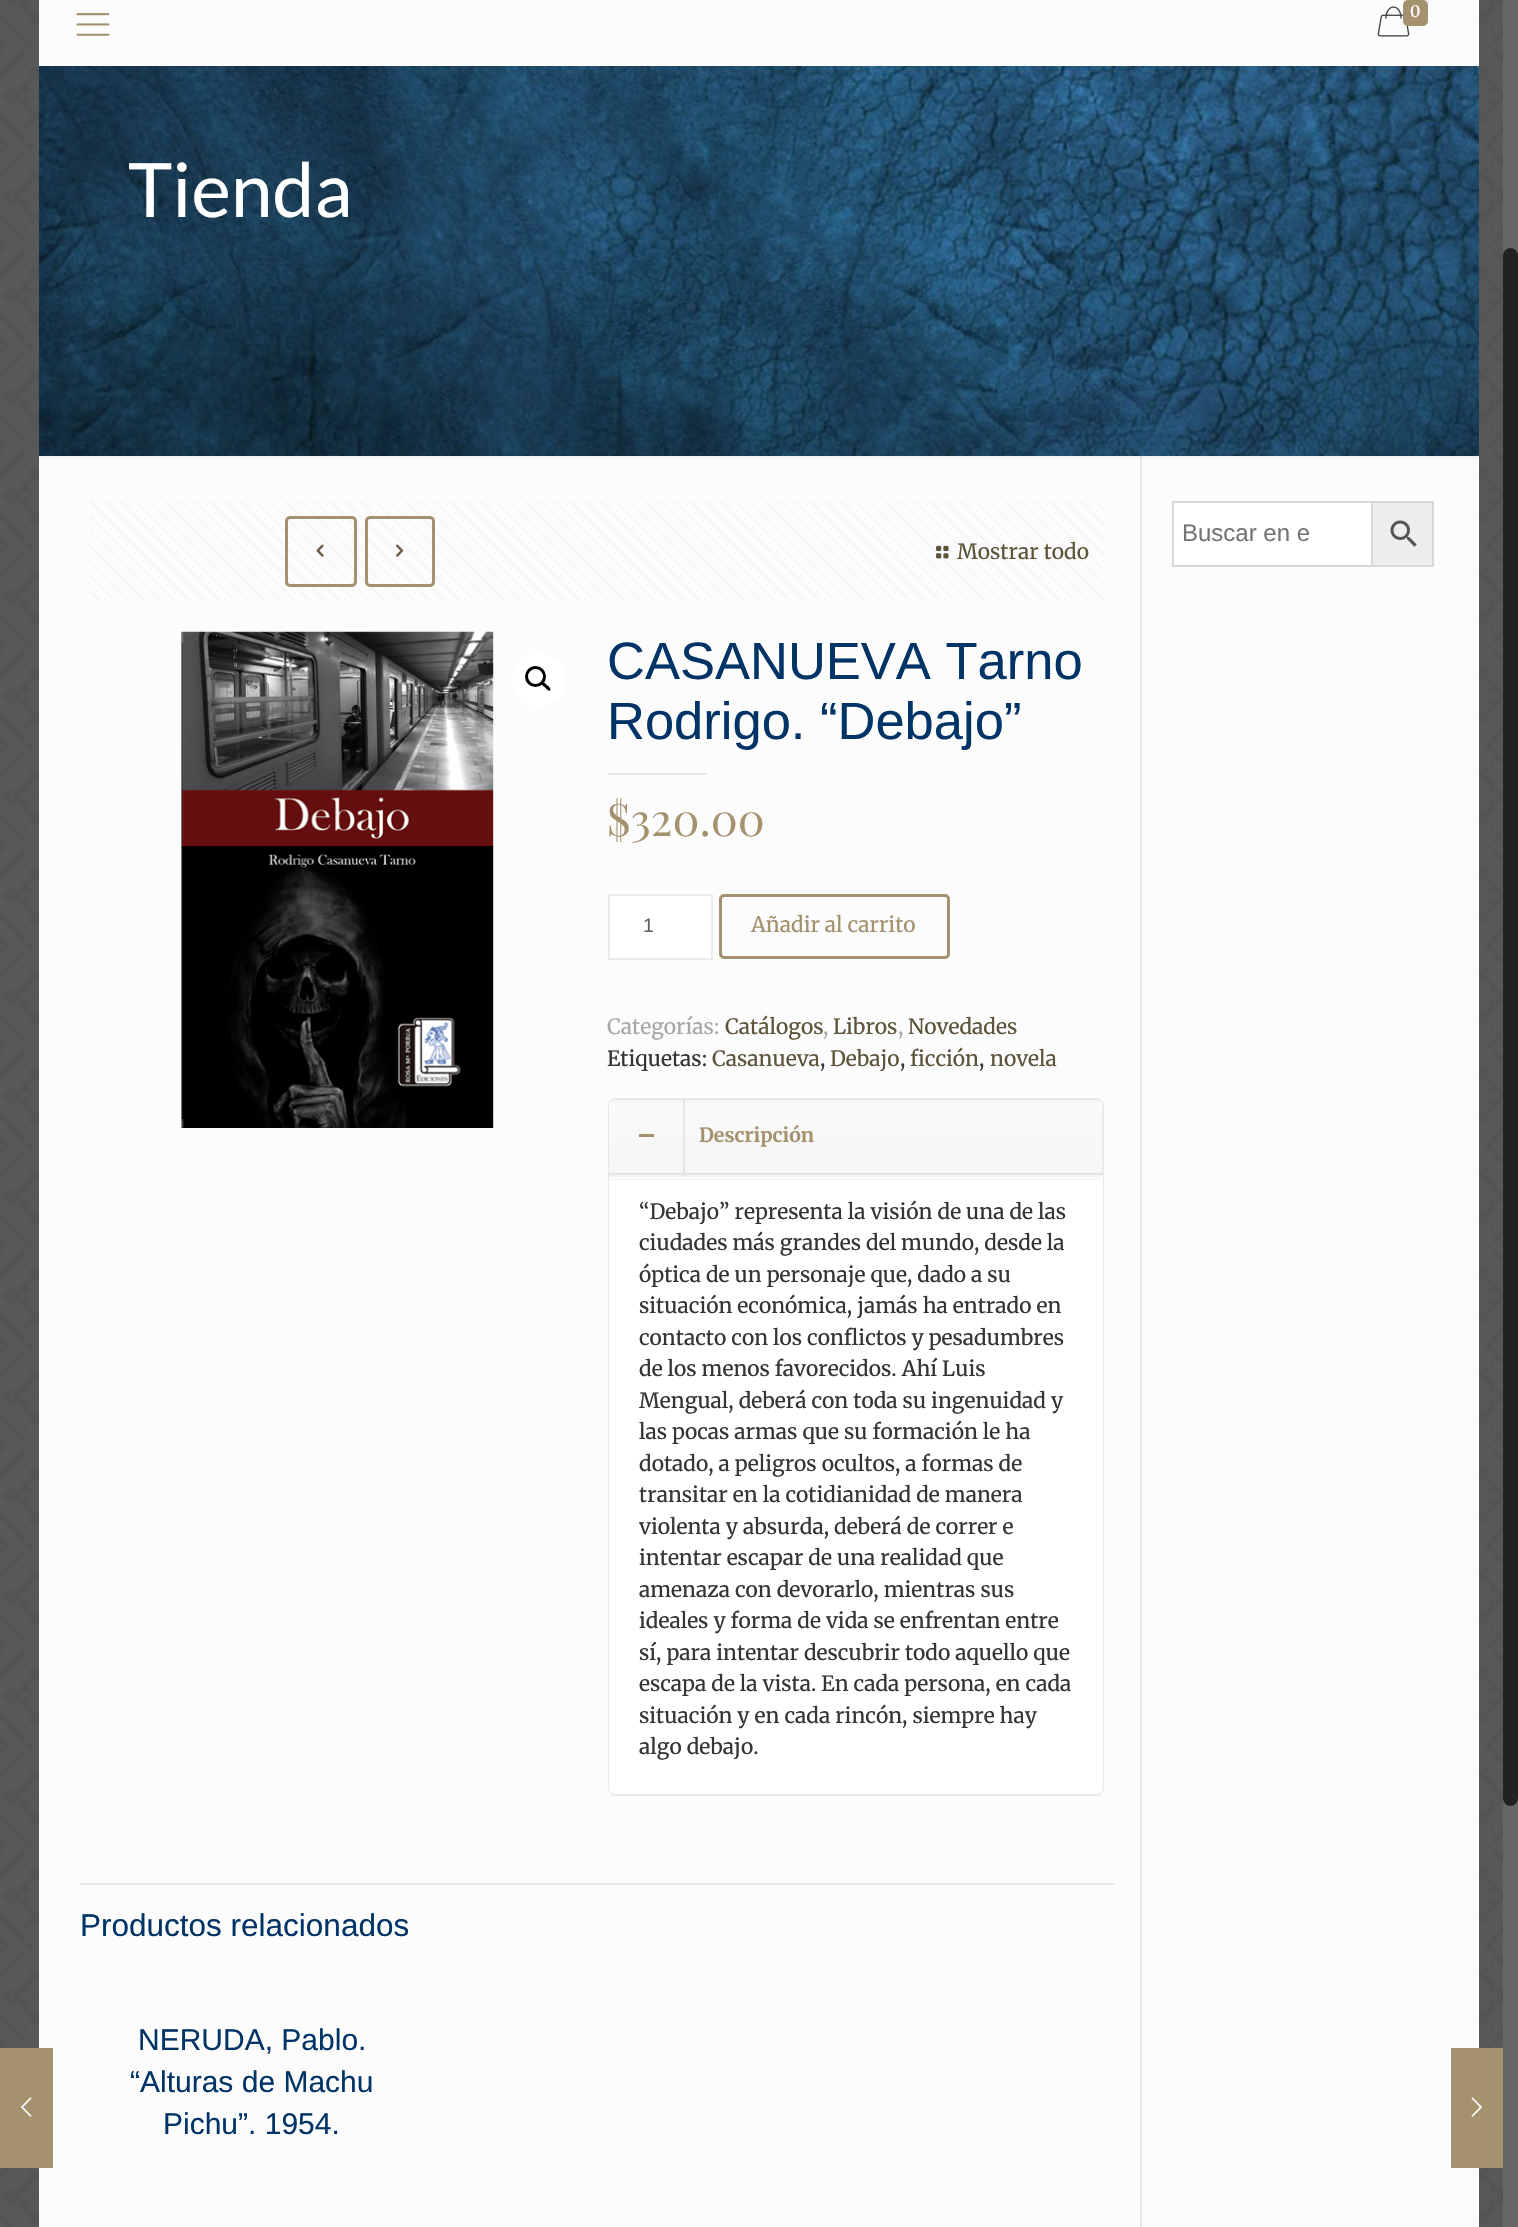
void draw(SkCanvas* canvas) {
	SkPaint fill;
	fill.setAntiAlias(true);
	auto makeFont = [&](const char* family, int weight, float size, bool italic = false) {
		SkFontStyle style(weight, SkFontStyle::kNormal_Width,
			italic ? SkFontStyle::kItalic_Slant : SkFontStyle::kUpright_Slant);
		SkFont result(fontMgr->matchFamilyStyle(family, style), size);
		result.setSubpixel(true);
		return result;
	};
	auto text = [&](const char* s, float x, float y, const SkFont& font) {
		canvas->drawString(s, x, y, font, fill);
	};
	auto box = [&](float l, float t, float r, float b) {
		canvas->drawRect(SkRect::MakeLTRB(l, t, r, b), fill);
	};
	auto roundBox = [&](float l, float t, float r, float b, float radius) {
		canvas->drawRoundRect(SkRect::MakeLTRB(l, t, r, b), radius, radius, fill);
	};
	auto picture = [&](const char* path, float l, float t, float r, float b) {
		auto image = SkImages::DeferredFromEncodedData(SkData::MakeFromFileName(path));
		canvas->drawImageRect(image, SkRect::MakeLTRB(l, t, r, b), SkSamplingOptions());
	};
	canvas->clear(0xFFFFFFFF);
	picture("image0.png", 0, 0, 1503, 2227);
	fill.setColor(0xFFFCFCFC);
	box(39, 0, 1479, 2227);
	fill.setColor(0xFFA4916D);
	box(0, 2048, 53, 2168);
	picture("image1.png", 21, 2097, 32, 2117);
	picture("image2.png", 1377, 6, 1410, 37);
	roundBox(1403, 0, 1428, 26, 5);
	picture("image3.png", 76, 13, 110, 36);
	picture("image4.png", 39, 66, 1479, 456);
	fill.setColor(0xFFE8E8E8);
	box(1140, 456, 1142, 2227);
	fill.setColor(0x0A000000);
	box(39, 456, 1479, 459);
	fill.setColor(0xFFEDEDED);
	canvas->drawRect(SkRect::MakeLTRB(1372, 502, 1433, 566), fill);
	fill.setStyle(SkPaint::kStroke_Style);
	fill.setStrokeWidth(2);
	fill.setColor(0xFFD8D8D8);
	canvas->drawRect(SkRect::MakeLTRB(1372, 502, 1433, 566), fill);
	fill.setStyle(SkPaint::kFill_Style);
	fill.setColor(0xFFFFFFFF);
	canvas->drawRect(SkRect::MakeLTRB(1173, 502, 1372, 566), fill);
	fill.setStyle(SkPaint::kStroke_Style);
	fill.setColor(0xFFD8D8D8);
	canvas->drawRect(SkRect::MakeLTRB(1173, 502, 1372, 566), fill);
	picture("image5.png", 1390, 520, 1417, 547);
	picture("image6.png", 90, 501, 1104, 601);
	fill.setStrokeWidth(3);
	fill.setColor(0xFFA4916D);
	canvas->drawRoundRect(SkRect::MakeLTRB(286.5f, 517.5f, 355.5f, 585.5f), 3.5f, 3.5f, fill);
	picture("image7.png", 316, 544, 324, 557);
	canvas->drawRoundRect(SkRect::MakeLTRB(366.5f, 517.5f, 433.5f, 585.5f), 3.5f, 3.5f, fill);
	picture("image8.png", 396, 544, 404, 557);
	picture("image9.png", 936, 545, 949, 559);
	picture("image10.png", 181, 631, 494, 1128);
	fill.setStyle(SkPaint::kFill_Style);
	fill.setColor(0xFFFFFFFF);
	canvas->drawCircle(539, 680, 27, fill);
	fill.setStyle(SkPaint::kStroke_Style);
	fill.setColor(0xFF000000);
	canvas->drawCircle(535.5f, 676.5f, 9, fill);
	fill.setStyle(SkPaint::kFill_Style);
	canvas->drawPath(SkPathBuilder().moveTo(541.5f, 682).cubicTo(543.5f, 680.5f, 546, 684.5f, 547, 685).cubicTo(548, 686, 552, 689, 550, 690.5f).cubicTo(548.5f, 692, 546, 688, 545, 687.5f).cubicTo(544, 686.5f, 540, 683.5f, 541.5f, 682).close().detach(), fill);
	fill.setColor(0xFFE8E8E8);
	box(608, 773, 707, 775);
	fill.setColor(0xFFFFFFFF);
	canvas->drawRect(SkRect::MakeLTRB(609, 895, 712, 959), fill);
	fill.setStyle(SkPaint::kStroke_Style);
	fill.setStrokeWidth(2);
	fill.setColor(0xFFEBEBEB);
	canvas->drawRect(SkRect::MakeLTRB(609, 895, 712, 959), fill);
	fill.setStrokeWidth(3);
	fill.setColor(0xFFA4916D);
	canvas->drawRoundRect(SkRect::MakeLTRB(720.5f, 895.5f, 948.5f, 957.5f), 3.5f, 3.5f, fill);
	fill.setStrokeWidth(2);
	fill.setColor(0xFFE8E8E8);
	canvas->drawRoundRect(SkRect::MakeLTRB(609, 1099, 1103, 1795), 7, 7, fill);
	picture("image11.png", 609, 1100, 1103, 1175);
	fill.setStyle(SkPaint::kFill_Style);
	fill.setColor(0x14000000);
	box(609, 1173, 1103, 1175);
	fill.setColor(0xFFA4916D);
	box(639, 1134, 654, 1137);
	fill.setColor(0x14000000);
	box(683, 1100, 685, 1173);
	fill.setColor(0xFFFFFFFF);
	canvas->drawPath(SkPathBuilder().moveTo(609, 1175).lineTo(1103, 1175).lineTo(1103, 1788).cubicTo(1103, 1791.5f, 1100.5f, 1794, 1097, 1794).lineTo(615, 1794).cubicTo(611.5f, 1794, 609, 1791.5f, 609, 1788).close().detach(), fill);
	picture("image12.png", 609, 1175, 1102, 1180);
	fill.setColor(0xFFE8E8E8);
	box(80, 1883, 1115, 1885);
	fill.setColor(0xFFA4916D);
	box(1451, 2048, 1503, 2168);
	picture("image13.png", 1471, 2097, 1482, 2117);
	fill.setColor(0xFF666666);
	box(1503, 0, 1518, 2227);
	fill.setColor(0xFF222222);
	roundBox(1503, 248, 1518, 1806, 7.5f);
	auto font1 = makeFont("Merriweather", 400, 16);
	fill.setColor(0xFFFFFFFF);
	text("0", 1410, 17, font1);
	auto font2 = makeFont("Lato", 400, 75);
	text("Tienda", 128, 217, font2);
	auto font3 = makeFont("Liberation Sans", 400, 24);
	fill.setColor(0xFF757575);
	text("Buscar en e", 1182, 541, font3);
	auto font4 = makeFont("Merriweather", 400, 21);
	fill.setColor(0xFF5D543B);
	text("Mostrar todo", 957, 559, font4);
	auto font5 = makeFont("Liberation Sans", 400, 52.5f);
	fill.setColor(0xFF003366);
	text("CASANUEVA Tarno", 607, 679, font5);
	text("Rodrigo. “Debajo”", 607, 739, font5);
	auto font6 = makeFont("Playfair Display", 400, 45);
	fill.setColor(0xFFA4916D);
	text("$320.00", 607, 836, font6);
	auto font7 = makeFont("Liberation Sans", 400, 19.5f);
	fill.setColor(0xFF626262);
	text("1", 643, 932, font7);
	fill.setColor(0xFFA4916D);
	text("Añadir al carrito", 751, 932, font4);
	fill.setColor(0xFFA8A8A8);
	text("Categorías:", 607, 1034, font4);
	fill.setColor(0xFF5D543B);
	text("Catálogos", 725, 1034, font4);
	fill.setColor(0xFFA8A8A8);
	text(",", 823, 1034, font4);
	fill.setColor(0xFF5D543B);
	text("Libros", 833, 1034, font4);
	fill.setColor(0xFFA8A8A8);
	text(",", 898, 1034, font4);
	fill.setColor(0xFF5D543B);
	text("Novedades", 908, 1034, font4);
	fill.setColor(0xFF353535);
	text("Etiquetas:", 607, 1066, font4);
	fill.setColor(0xFF5D543B);
	text("Casanueva", 712, 1066, font4);
	fill.setColor(0xFF353535);
	text(",", 820, 1066, font4);
	fill.setColor(0xFF5D543B);
	text("Debajo", 830, 1066, font4);
	fill.setColor(0xFF353535);
	text(",", 900, 1066, font4);
	fill.setColor(0xFF5D543B);
	text("ficción", 910, 1066, font4);
	fill.setColor(0xFF353535);
	text(",", 979, 1066, font4);
	fill.setColor(0xFF5D543B);
	text("novela", 990, 1066, font4);
	auto font8 = makeFont("Merriweather", 700, 19.5f);
	fill.setColor(0xFFA4916D);
	text("Descripción", 699, 1142, font8);
	fill.setColor(0xFF353535);
	text("“Debajo” representa la visión de una de las", 639, 1219, font4);
	text("ciudades más grandes del mundo, desde la", 639, 1250, font4);
	text("óptica de un personaje que, dado a su", 639, 1282, font4);
	text("situación económica, jamás ha entrado en", 639, 1313, font4);
	text("contacto con los conflictos y pesadumbres", 639, 1345, font4);
	text("de los menos favorecidos. Ahí Luis", 639, 1376, font4);
	text("Mengual, deberá con toda su ingenuidad y", 639, 1408, font4);
	text("las pocas armas que su formación le ha", 639, 1439, font4);
	text("dotado, a peligros ocultos, a formas de", 639, 1471, font4);
	text("transitar en la cotidianidad de manera", 639, 1502, font4);
	text("violenta y absurda, deberá de correr e", 639, 1534, font4);
	text("intentar escapar de una realidad que", 639, 1565, font4);
	text("amenaza con devorarlo, mientras sus", 639, 1597, font4);
	text("ideales y forma de vida se enfrentan entre", 639, 1628, font4);
	text("sí, para intentar descubrir todo aquello que", 639, 1660, font4);
	text("escapa de la vista. En cada persona, en cada", 639, 1691, font4);
	text("situación y en cada rincón, siempre hay", 639, 1723, font4);
	text("algo debajo.", 639, 1754, font4);
	auto font9 = makeFont("Liberation Sans", 400, 31.5f);
	fill.setColor(0xFF003366);
	text("Productos relacionados", 80, 1936, font9);
	auto font10 = makeFont("Liberation Sans", 400, 30);
	text("NERUDA, Pablo.", 138, 2050, font10);
	text("“Alturas de Machu", 130, 2092, font10);
	text("Pichu”. 1954.", 163, 2134, font10);
}
